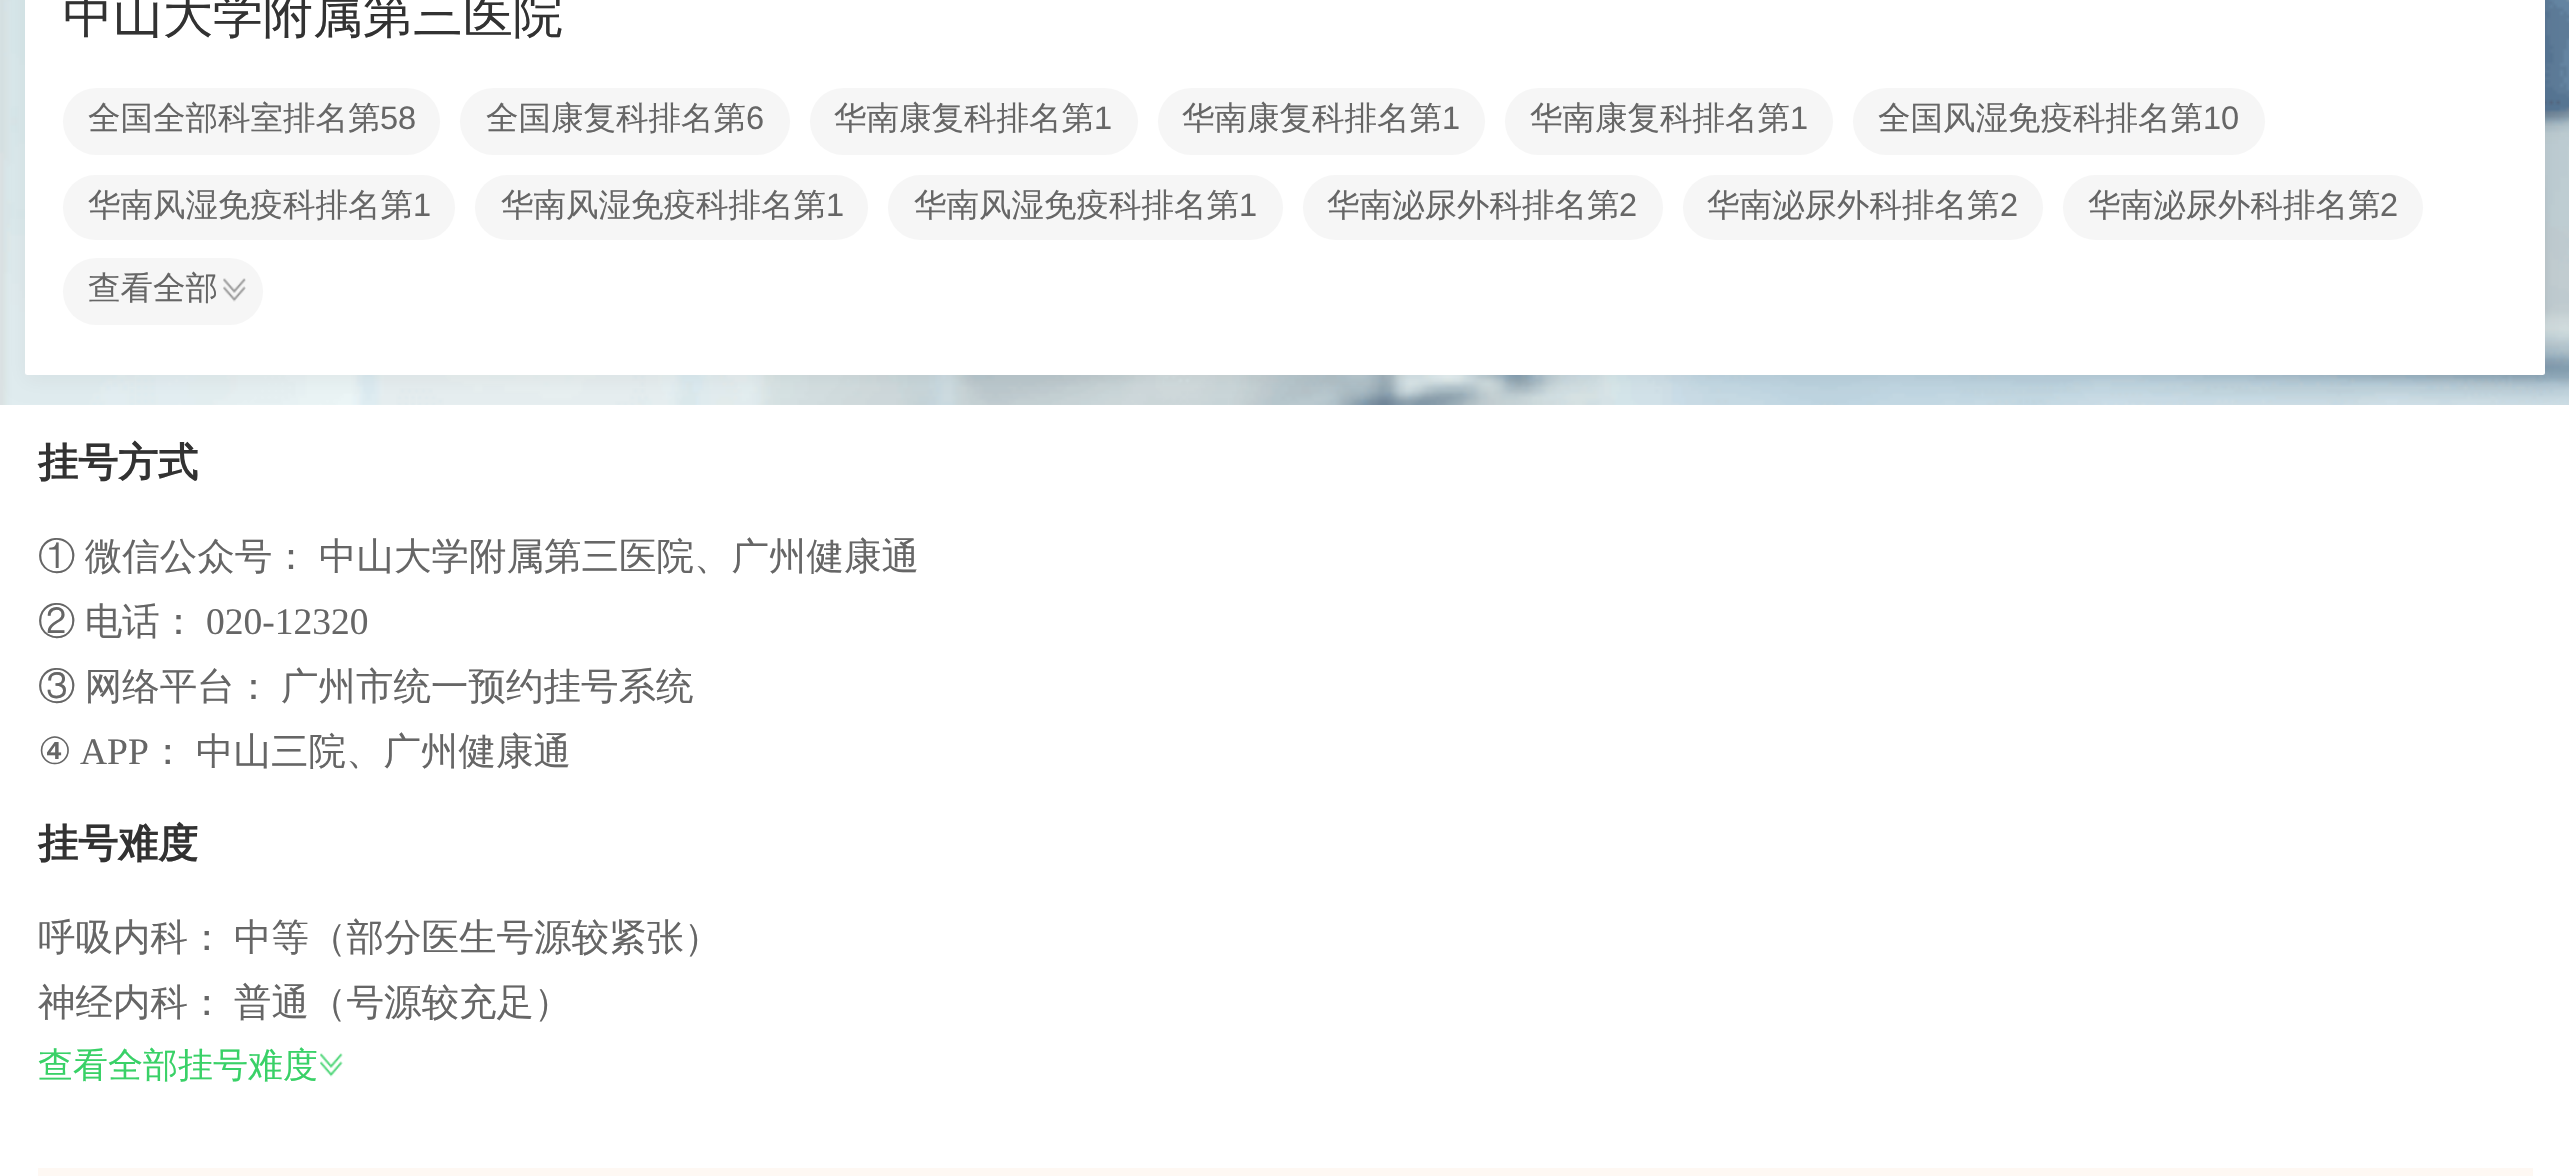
void draw(SkCanvas* canvas) {
	SkPaint fill;
	fill.setAntiAlias(true);
	auto makeFont = [&](const char* family, int weight, float size, bool italic = false) {
		SkFontStyle style(weight, SkFontStyle::kNormal_Width,
			italic ? SkFontStyle::kItalic_Slant : SkFontStyle::kUpright_Slant);
		SkFont result(fontMgr->matchFamilyStyle(family, style), size);
		result.setSubpixel(true);
		return result;
	};
	auto text = [&](const char* s, float x, float y, const SkFont& font) {
		canvas->drawString(s, x, y, font, fill);
	};
	auto spacedText = [&](const char* s, float x, float y, const SkFont& font, const SkPaint& ink, float letter, float word) {
		std::vector<SkGlyphID> glyphs(font.countText(s, strlen(s), SkTextEncoding::kUTF8));
		std::vector<float> xs(glyphs.size());
		font.textToGlyphs(s, strlen(s), SkTextEncoding::kUTF8, glyphs);
		font.getXPos(glyphs, xs, x);
		float extra = 0;
		for (size_t i = 0; i < glyphs.size(); i++) {
			xs[i] += extra;
			extra += letter + word * (glyphs[i] == font.unicharToGlyph(' '));
		}
		canvas->drawTextBlob(SkTextBlob::MakeFromPosHGlyphs(glyphs, xs, y, font), 0, 0, ink);
	};
	auto box = [&](float l, float t, float r, float b) {
		canvas->drawRect(SkRect::MakeLTRB(l, t, r, b), fill);
	};
	auto roundBox = [&](float l, float t, float r, float b, float radius) {
		canvas->drawRoundRect(SkRect::MakeLTRB(l, t, r, b), radius, radius, fill);
	};
	auto picture = [&](const char* path, float l, float t, float r, float b) {
		auto image = SkImages::DeferredFromEncodedData(SkData::MakeFromFileName(path));
		canvas->drawImageRect(image, SkRect::MakeLTRB(l, t, r, b), SkSamplingOptions());
	};
	canvas->clear(0xFFFFFFFF);
	picture("image0.png", 0, 0, 2569, 405);
	fill.setColor(0x0D000000);
	fill.setMaskFilter(SkMaskFilter::MakeBlur(kNormal_SkBlurStyle, 10));
	canvas->drawRoundRect(SkRect::MakeLTRB(25, -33, 2545, 380), 2.5f, 2.5f, fill);
	fill.setMaskFilter(nullptr);
	fill.setColor(0xFFFFFFFF);
	roundBox(25, -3, 2545, 375, 2.5f);
	fill.setColor(0xFFF6F6F6);
	roundBox(63, 88, 440, 155, 33.5f);
	roundBox(460, 88, 790, 155, 33.5f);
	roundBox(810, 88, 1138, 155, 33.5f);
	roundBox(1158, 88, 1485, 155, 33.5f);
	roundBox(1505, 88, 1833, 155, 33.5f);
	roundBox(1853, 88, 2265, 155, 33.5f);
	roundBox(63, 175, 455, 240, 32.5f);
	roundBox(475, 175, 868, 240, 32.5f);
	roundBox(888, 175, 1283, 240, 32.5f);
	roundBox(1303, 175, 1663, 240, 32.5f);
	roundBox(1683, 175, 2043, 240, 32.5f);
	roundBox(2063, 175, 2423, 240, 32.5f);
	roundBox(63, 258, 263, 325, 33.5f);
	picture("image1.png", 223, 278, 246, 302);
	picture("image2.png", 320, 1053, 343, 1077);
	fill.setColor(0xFFFEF8F3);
	box(38, 1168, 2533, 1176);
	auto font1 = makeFont("WenQuanYi Zen Hei", 500, 50);
	fill.setColor(0xFF323232);
	text("中山大学附属第三医院", 63, 32, font1);
	auto font2 = makeFont("WenQuanYi Zen Hei", 500, 32.5f);
	fill.setColor(0xFF666666);
	text("全国全部科室排名第", 88, 129, font2);
	auto font3 = makeFont("Liberation Sans", 400, 32.5f);
	text("58", 380, 129, font3);
	text("全国康复科排名第", 486, 129, font2);
	text("6", 746, 129, font3);
	text("华南康复科排名第", 834, 129, font2);
	text("1", 1094, 129, font3);
	text("华南康复科排名第", 1182, 129, font2);
	text("1", 1442, 129, font3);
	text("华南康复科排名第", 1530, 129, font2);
	text("1", 1790, 129, font3);
	text("全国风湿免疫科排名第", 1878, 129, font2);
	text("10", 2203, 129, font3);
	text("华南风湿免疫科排名第", 88, 216, font2);
	text("1", 413, 216, font3);
	text("华南风湿免疫科排名第", 501, 216, font2);
	text("1", 826, 216, font3);
	text("华南风湿免疫科排名第", 914, 216, font2);
	text("1", 1239, 216, font3);
	text("华南泌尿外科排名第", 1327, 216, font2);
	text("2", 1619, 216, font3);
	text("华南泌尿外科排名第", 1707, 216, font2);
	text("2", 2000, 216, font3);
	text("华南泌尿外科排名第", 2088, 216, font2);
	text("2", 2380, 216, font3);
	text("查看全部", 88, 299, font2);
	auto font4 = makeFont("WenQuanYi Zen Hei", 700, 40);
	fill.setColor(0xFF323232);
	text("挂号方式", 38, 476, font4);
	auto font5 = makeFont("WenQuanYi Zen Hei", 500, 37.5f);
	fill.setColor(0xFF666666);
	spacedText("① 微信公众号：", 38, 569, font5, fill, 0, -2);
	text("中山大学附属第三医院、广州健康通", 319, 569, font5);
	spacedText("② 电话：", 38, 634, font5, fill, 0, -2);
	auto font6 = makeFont("Liberation Serif", 400, 37.5f);
	text("020-12320", 206, 634, font6);
	spacedText("③ 网络平台：", 38, 699, font5, fill, 0, -2);
	text("广州市统一预约挂号系统", 281, 699, font5);
	auto font7 = makeFont("DejaVu Sans", 400, 37.5f);
	text("④", 38, 764, font7);
	text("APP", 80, 764, font6);
	text("：", 149, 764, font5);
	text("中山三院、广州健康通", 196, 764, font5);
	fill.setColor(0xFF323232);
	text("挂号难度", 38, 857, font4);
	fill.setColor(0xFF666666);
	text("呼吸内科：", 38, 950, font5);
	text("中等（部分医生号源较紧张）", 234, 950, font5);
	text("神经内科：", 38, 1015, font5);
	text("普通（号源较充足）", 234, 1015, font5);
	auto font8 = makeFont("WenQuanYi Zen Hei", 500, 35);
	fill.setColor(0xFF39D167);
	text("查看全部挂号难度", 38, 1077, font8);
}
